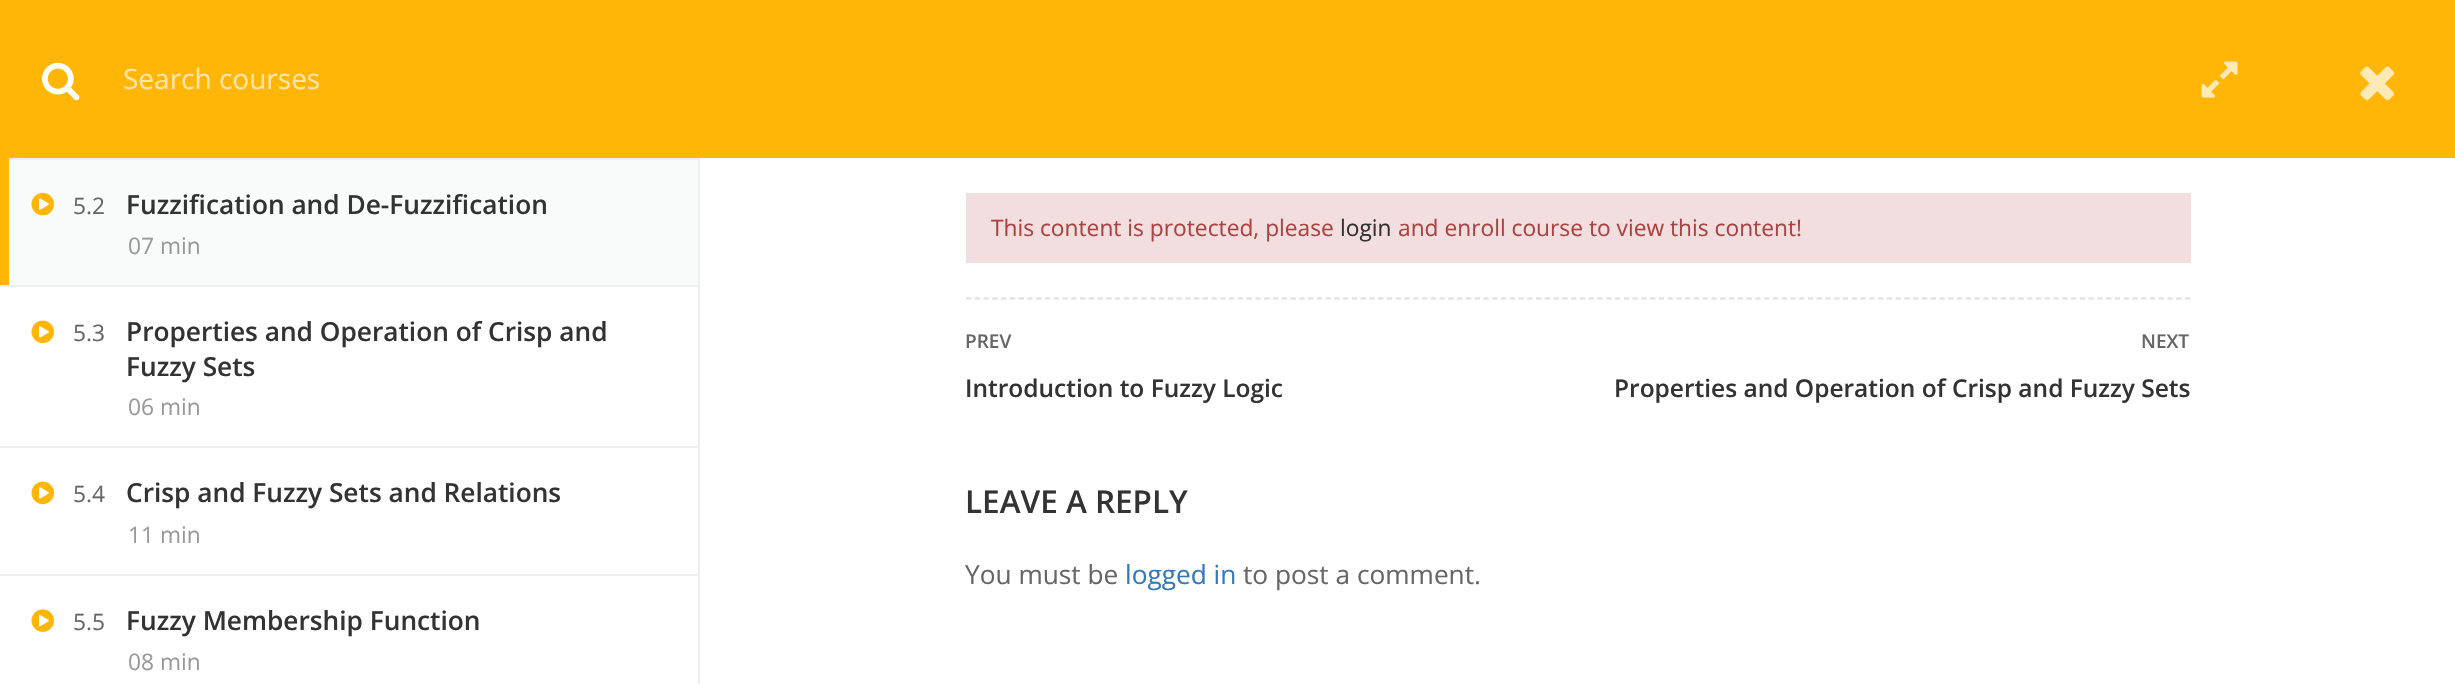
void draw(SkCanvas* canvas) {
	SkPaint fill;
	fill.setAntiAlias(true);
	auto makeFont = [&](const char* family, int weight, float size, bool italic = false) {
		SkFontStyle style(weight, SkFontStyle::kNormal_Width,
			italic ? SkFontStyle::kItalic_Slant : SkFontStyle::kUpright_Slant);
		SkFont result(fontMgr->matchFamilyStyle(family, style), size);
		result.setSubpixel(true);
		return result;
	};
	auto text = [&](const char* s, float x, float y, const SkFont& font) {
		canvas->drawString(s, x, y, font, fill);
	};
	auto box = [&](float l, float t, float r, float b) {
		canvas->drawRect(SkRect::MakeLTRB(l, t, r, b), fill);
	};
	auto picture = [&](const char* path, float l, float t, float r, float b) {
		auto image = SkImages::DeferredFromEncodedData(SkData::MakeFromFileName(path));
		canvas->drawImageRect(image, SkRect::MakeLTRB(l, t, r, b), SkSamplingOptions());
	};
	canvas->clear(0xFFFFFFFF);
	fill.setColor(0xFFFFB606);
	box(0, 0, 2455, 158);
	picture("image0.png", 42, 62, 80, 101);
	picture("image1.png", 2201, 61, 2238, 98);
	picture("image2.png", 2360, 66, 2394, 101);
	fill.setColor(0xFFF2DEDE);
	box(966, 193, 2191, 263);
	fill.setStyle(SkPaint::kStroke_Style);
	fill.setStrokeWidth(1.8f);
	fill.setColor(0xFFDDDDDD);
	fill.setPathEffect(SkDashPathEffect::Make({{5.25f, 3.52f}}, 0));
	canvas->drawPath(SkPathBuilder().moveTo(966, 298.5f).lineTo(2191, 298.5f).detach(), fill);
	fill.setPathEffect(nullptr);
	fill.setStyle(SkPaint::kFill_Style);
	fill.setColor(0xFFF9FAFA);
	box(9, 160, 698, 285);
	fill.setColor(0xFFEEEEEE);
	box(9, 158, 700, 160);
	fill.setColor(0xFFFFB606);
	box(0, 158, 9, 285);
	picture("image3.png", 31, 192, 54, 216);
	fill.setColor(0xFFEEEEEE);
	box(0, 285, 700, 287);
	picture("image4.png", 31, 320, 54, 344);
	box(0, 446, 700, 448);
	picture("image4.png", 31, 481, 54, 505);
	box(0, 574, 700, 576);
	picture("image5.png", 31, 609, 54, 632);
	box(698, 158, 700, 684);
	auto font1 = makeFont("Open Sans", 400, 28);
	fill.setColor(0xFFFFE5A8);
	text("Search courses", 123, 89, font1);
	auto font2 = makeFont("Open Sans", 400, 22.75f);
	fill.setColor(0xFFA94442);
	text("This content is protected, please", 991, 236, font2);
	fill.setColor(0xFF333333);
	text("login", 1340, 236, font2);
	fill.setColor(0xFFA94442);
	text("and enroll course to view this content!", 1398, 236, font2);
	auto font3 = makeFont("Open Sans", 600, 19);
	fill.setColor(0xFF666666);
	text("PREV", 965, 348, font3);
	auto font4 = makeFont("Open Sans", 600, 24.5f);
	fill.setColor(0xFF333333);
	text("Introduction to Fuzzy Logic", 965, 397, font4);
	fill.setColor(0xFF666666);
	text("NEXT", 2141, 348, font3);
	fill.setColor(0xFF333333);
	text("Properties and Operation of Crisp and Fuzzy Sets", 1614, 397, font4);
	auto font5 = makeFont("Open Sans", 600, 31.5f);
	text("LEAVE A REPLY", 965, 513, font5);
	auto font6 = makeFont("Open Sans", 400, 26.25f);
	fill.setColor(0xFF666666);
	text("You must be", 965, 584, font6);
	fill.setColor(0xFF337AB7);
	text("logged in", 1125, 584, font6);
	fill.setColor(0xFF666666);
	text("to post a comment.", 1243, 584, font6);
	text("5.2", 73, 214, font2);
	auto font7 = makeFont("Open Sans", 600, 26.25f);
	fill.setColor(0xFF333333);
	text("Fuzzification and De-Fuzzification", 126, 214, font7);
	fill.setColor(0xFF999999);
	text("07 min", 128, 254, font2);
	fill.setColor(0xFF666666);
	text("5.3", 73, 341, font2);
	fill.setColor(0xFF333333);
	text("Properties and Operation of Crisp and", 126, 341, font7);
	text("Fuzzy Sets", 126, 376, font7);
	fill.setColor(0xFF999999);
	text("06 min", 128, 415, font2);
	fill.setColor(0xFF666666);
	text("5.4", 73, 502, font2);
	fill.setColor(0xFF333333);
	text("Crisp and Fuzzy Sets and Relations", 126, 502, font7);
	fill.setColor(0xFF999999);
	text("11 min", 128, 543, font2);
	fill.setColor(0xFF666666);
	text("5.5", 73, 630, font2);
	fill.setColor(0xFF333333);
	text("Fuzzy Membership Function", 126, 630, font7);
	fill.setColor(0xFF999999);
	text("08 min", 128, 670, font2);
}
